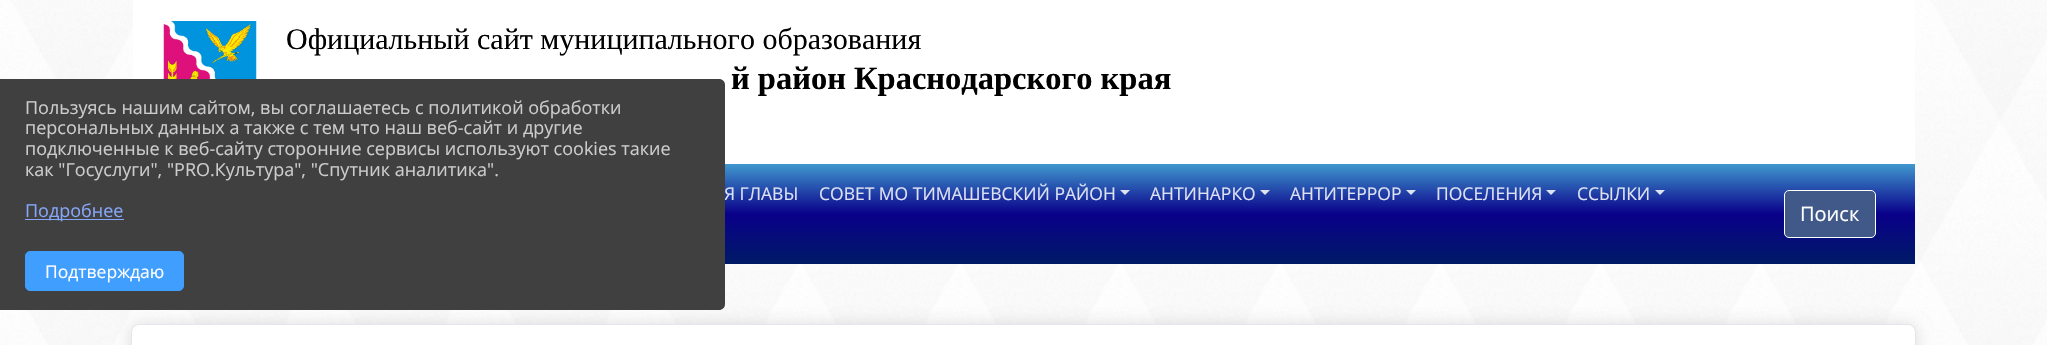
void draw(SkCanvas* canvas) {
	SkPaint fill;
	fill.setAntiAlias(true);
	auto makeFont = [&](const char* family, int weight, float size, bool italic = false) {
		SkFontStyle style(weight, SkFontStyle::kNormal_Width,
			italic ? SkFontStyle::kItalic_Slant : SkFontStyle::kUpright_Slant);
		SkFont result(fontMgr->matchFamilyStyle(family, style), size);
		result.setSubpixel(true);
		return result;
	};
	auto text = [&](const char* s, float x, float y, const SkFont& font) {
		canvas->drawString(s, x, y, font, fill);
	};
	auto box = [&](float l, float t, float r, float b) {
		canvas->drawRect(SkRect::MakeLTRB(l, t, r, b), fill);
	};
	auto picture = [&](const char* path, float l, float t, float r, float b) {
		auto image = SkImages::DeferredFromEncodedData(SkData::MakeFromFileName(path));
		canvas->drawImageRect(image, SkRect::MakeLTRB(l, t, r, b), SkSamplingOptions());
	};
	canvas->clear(0xFFFFFFFF);
	picture("image0.png", 0, 0, 2047, 345);
	fill.setColor(0xFFFFFFFF);
	box(133, 0, 1915, 164);
	picture("image1.png", 163, 21, 257, 79);
	{
		const SkColor colors[] = {0xFF4098CE, 0xFF09008A, 0xFF001A66};
		const float stops[] = {0, 0.5f, 1};
		const SkPoint ends[] = {{1024, 164}, {1024, 264}};
		fill.setShader(SkGradientShader::MakeLinear(ends, colors, stops, 3, SkTileMode::kClamp));
		fill.setAlpha(255);
	}
	box(725, 164, 1915, 264);
	fill.setShader(nullptr);
	fill.setColor(0xD9FFFFFF);
	canvas->drawPath(SkPathBuilder().moveTo(1120, 190).lineTo(1130, 190).lineTo(1125, 195).close().detach(), fill);
	canvas->drawPath(SkPathBuilder().moveTo(1260, 190).lineTo(1270, 190).lineTo(1265, 195).close().detach(), fill);
	canvas->drawPath(SkPathBuilder().moveTo(1406, 190).lineTo(1416, 190).lineTo(1411, 195).close().detach(), fill);
	canvas->drawPath(SkPathBuilder().moveTo(1546, 190).lineTo(1556, 190).lineTo(1551, 195).close().detach(), fill);
	canvas->drawPath(SkPathBuilder().moveTo(1655, 190).lineTo(1665, 190).lineTo(1660, 195).close().detach(), fill);
	fill.setColor(0xFF405988);
	canvas->drawRoundRect(SkRect::MakeLTRB(1784.5f, 190.5f, 1875.5f, 237.5f), 4.5f, 4.5f, fill);
	fill.setStyle(SkPaint::kStroke_Style);
	fill.setStrokeWidth(1);
	fill.setColor(0xFFFFFFFF);
	canvas->drawRoundRect(SkRect::MakeLTRB(1784.5f, 190.5f, 1875.5f, 237.5f), 4.5f, 4.5f, fill);
	fill.setStyle(SkPaint::kFill_Style);
	fill.setColor(0x1F000000);
	fill.setMaskFilter(SkMaskFilter::MakeBlur(kNormal_SkBlurStyle, 7.5f));
	canvas->drawRoundRect(SkRect::MakeLTRB(131, 324, 1916, 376), 8, 8, fill);
	fill.setMaskFilter(nullptr);
	fill.setColor(0xFFFFFFFF);
	canvas->drawRoundRect(SkRect::MakeLTRB(131.5f, 324.5f, 1915.5f, 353.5f), 7.5f, 7.5f, fill);
	fill.setStyle(SkPaint::kStroke_Style);
	fill.setColor(0xFFE4E7ED);
	canvas->drawRoundRect(SkRect::MakeLTRB(131.5f, 324.5f, 1915.5f, 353.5f), 7.5f, 7.5f, fill);
	auto font1 = makeFont("Liberation Serif", 400, 30);
	fill.setStyle(SkPaint::kFill_Style);
	fill.setColor(0xFF000000);
	text("Официальный сайт муниципального образования", 286, 49, font1);
	auto font2 = makeFont("Liberation Serif", 700, 32.5f);
	text("й район Краснодарского края", 731, 89, font2);
	auto font3 = makeFont("Open Sans", 400, 17.5f);
	fill.setColor(0xFFDDE2F2);
	text("Я ГЛАВЫ", 724, 200, font3);
	text("СОВЕТ МО ТИМАШЕВСКИЙ РАЙОН", 819, 200, font3);
	text("АНТИНАРКО", 1150, 200, font3);
	text("АНТИТЕРРОР", 1290, 200, font3);
	text("ПОСЕЛЕНИЯ", 1436, 200, font3);
	text("ССЫЛКИ", 1577, 200, font3);
	auto font4 = makeFont("Open Sans", 400, 20);
	fill.setColor(0xFFFFFFFF);
	text("Поиск", 1800, 221, font4);
	fill.setColor(0xFF404040);
	canvas->drawPath(SkPathBuilder().moveTo(0, 79).lineTo(719, 79).cubicTo(722.5f, 79, 725, 81.5f, 725, 85).lineTo(725, 304).cubicTo(725, 307.5f, 722.5f, 310, 719, 310).lineTo(0, 310).close().detach(), fill);
	auto font5 = makeFont("Open Sans", 400, 18);
	fill.setColor(0xFFCCCCCC);
	text("Пользуясь нашим сайтом, вы соглашаетесь с политикой обработки", 25, 114, font5);
	text("персональных данных а также с тем что наш веб-сайт и другие", 25, 134, font5);
	text("подключенные к веб-сайту сторонние сервисы используют cookies такие", 25, 155, font5);
	text("как \"Госуслуги\", \"PRO.Культура\", \"Спутник аналитика\".", 25, 176, font5);
	fill.setColor(0xFF85A6F9);
	box(25, 219, 124, 220);
	text("Подробнее", 25, 217, font5);
	fill.setColor(0xFF409EFF);
	canvas->drawRoundRect(SkRect::MakeLTRB(25.5f, 251.5f, 183.5f, 290.5f), 4.5f, 4.5f, fill);
	fill.setStyle(SkPaint::kStroke_Style);
	canvas->drawRoundRect(SkRect::MakeLTRB(25.5f, 251.5f, 183.5f, 290.5f), 4.5f, 4.5f, fill);
	fill.setStyle(SkPaint::kFill_Style);
	fill.setColor(0xFFFFFFFF);
	text("Подтверждаю", 45, 278, font3);
}
